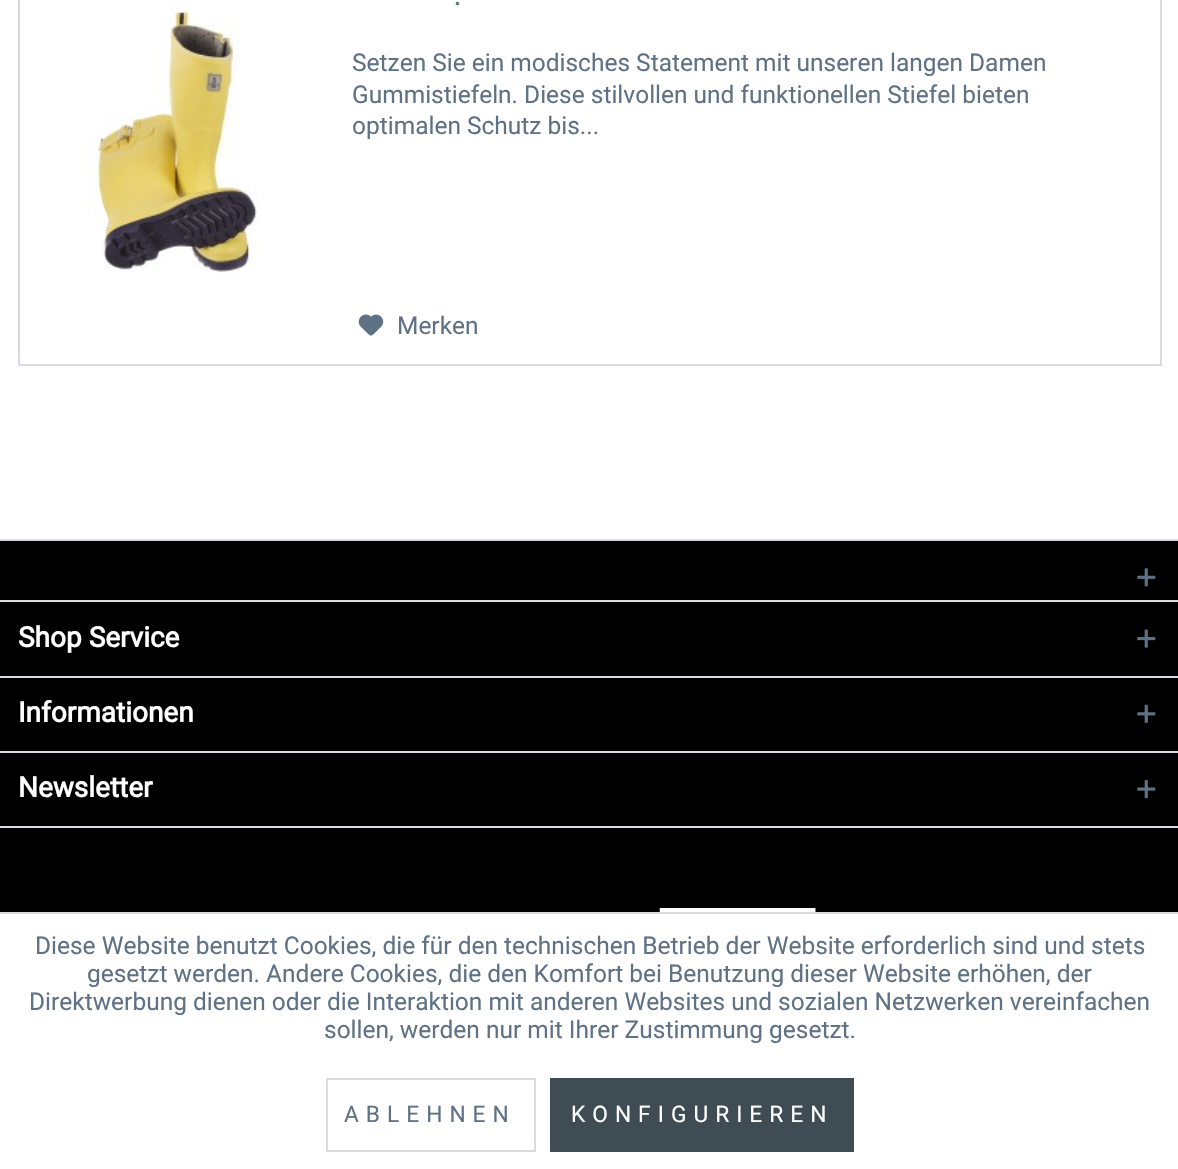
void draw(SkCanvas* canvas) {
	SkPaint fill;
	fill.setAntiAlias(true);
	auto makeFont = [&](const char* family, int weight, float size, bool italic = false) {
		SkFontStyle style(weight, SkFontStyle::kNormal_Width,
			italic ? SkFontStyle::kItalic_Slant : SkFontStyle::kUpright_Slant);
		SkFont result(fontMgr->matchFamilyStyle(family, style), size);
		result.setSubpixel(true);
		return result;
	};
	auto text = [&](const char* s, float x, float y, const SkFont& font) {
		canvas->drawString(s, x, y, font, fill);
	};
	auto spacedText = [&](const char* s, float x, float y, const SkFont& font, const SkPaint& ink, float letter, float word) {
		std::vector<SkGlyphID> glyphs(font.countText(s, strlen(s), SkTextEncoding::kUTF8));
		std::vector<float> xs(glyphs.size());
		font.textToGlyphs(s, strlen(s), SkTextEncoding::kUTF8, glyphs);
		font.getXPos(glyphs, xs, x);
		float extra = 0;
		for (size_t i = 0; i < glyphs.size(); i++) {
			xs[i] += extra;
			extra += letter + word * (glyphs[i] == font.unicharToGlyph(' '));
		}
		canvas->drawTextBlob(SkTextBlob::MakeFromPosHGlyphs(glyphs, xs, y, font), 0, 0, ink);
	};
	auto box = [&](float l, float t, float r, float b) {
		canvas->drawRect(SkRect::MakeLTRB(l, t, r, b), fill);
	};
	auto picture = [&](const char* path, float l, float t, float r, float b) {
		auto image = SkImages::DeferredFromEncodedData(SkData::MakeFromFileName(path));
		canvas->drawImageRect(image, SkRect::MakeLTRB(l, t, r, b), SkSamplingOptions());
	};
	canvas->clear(0xFFFFFFFF);
	fill.setStyle(SkPaint::kStroke_Style);
	fill.setStrokeWidth(2);
	fill.setColor(0xFFDADAE5);
	canvas->drawRect(SkRect::MakeLTRB(19, -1, 1161, 365), fill);
	picture("image0.png", 85, 2, 259, 280);
	picture("image1.png", 358, 314, 384, 336);
	fill.setStyle(SkPaint::kFill_Style);
	fill.setColor(0xFF000000);
	box(0, 541, 1178, 912);
	fill.setColor(0xFFDADAE5);
	box(0, 539, 1178, 541);
	picture("image2.png", 1137, 568, 1156, 587);
	box(0, 600, 1178, 602);
	picture("image3.png", 1137, 629, 1156, 648);
	box(0, 676, 1178, 678);
	picture("image4.png", 1137, 704, 1156, 723);
	box(0, 751, 1178, 753);
	box(0, 826, 1178, 828);
	picture("image5.png", 1137, 779, 1156, 799);
	picture("image6.png", 659, 908, 816, 912);
	box(0, 912, 1178, 914);
	fill.setStyle(SkPaint::kStroke_Style);
	canvas->drawRect(SkRect::MakeLTRB(327, 1079, 535, 1151), fill);
	fill.setStyle(SkPaint::kFill_Style);
	fill.setColor(0xFF3F4C53);
	box(550, 1078, 854, 1152);
	auto font1 = makeFont("Roboto", 700, 24.5f);
	fill.setColor(0xFF5F7285);
	text(".", 454, 5, font1);
	auto font2 = makeFont("Roboto", 400, 24.5f);
	text("Setzen Sie ein modisches Statement mit unseren langen Damen", 352, 71, font2);
	text("Gummistiefeln. Diese stilvollen und funktionellen Stiefel bieten", 352, 103, font2);
	text("optimalen Schutz bis...", 352, 134, font2);
	text("Merken", 397, 334, font2);
	auto font3 = makeFont("Roboto", 700, 28);
	fill.setColor(0xFFFFFFFF);
	text("Shop Service", 18, 647, font3);
	text("Informationen", 18, 722, font3);
	text("Newsletter", 18, 797, font3);
	fill.setColor(0xFF5F7285);
	text("Diese Website benutzt Cookies, die für den technischen Betrieb der Website erforderlich sind und stets", 35, 954, font2);
	text("gesetzt werden. Andere Cookies, die den Komfort bei Benutzung dieser Website erhöhen, der", 87, 982, font2);
	text("Direktwerbung dienen oder die Interaktion mit anderen Websites und sozialen Netzwerken vereinfachen", 29, 1010, font2);
	text("sollen, werden nur mit Ihrer Zustimmung gesetzt.", 324, 1038, font2);
	auto font4 = makeFont("Roboto", 400, 22.75f);
	spacedText("ABLEHNEN", 344, 1122, font4, fill, 7, 0);
	fill.setColor(0xFFFFFFFF);
	spacedText("KONFIGURIEREN", 571, 1122, font4, fill, 7, 0);
}
